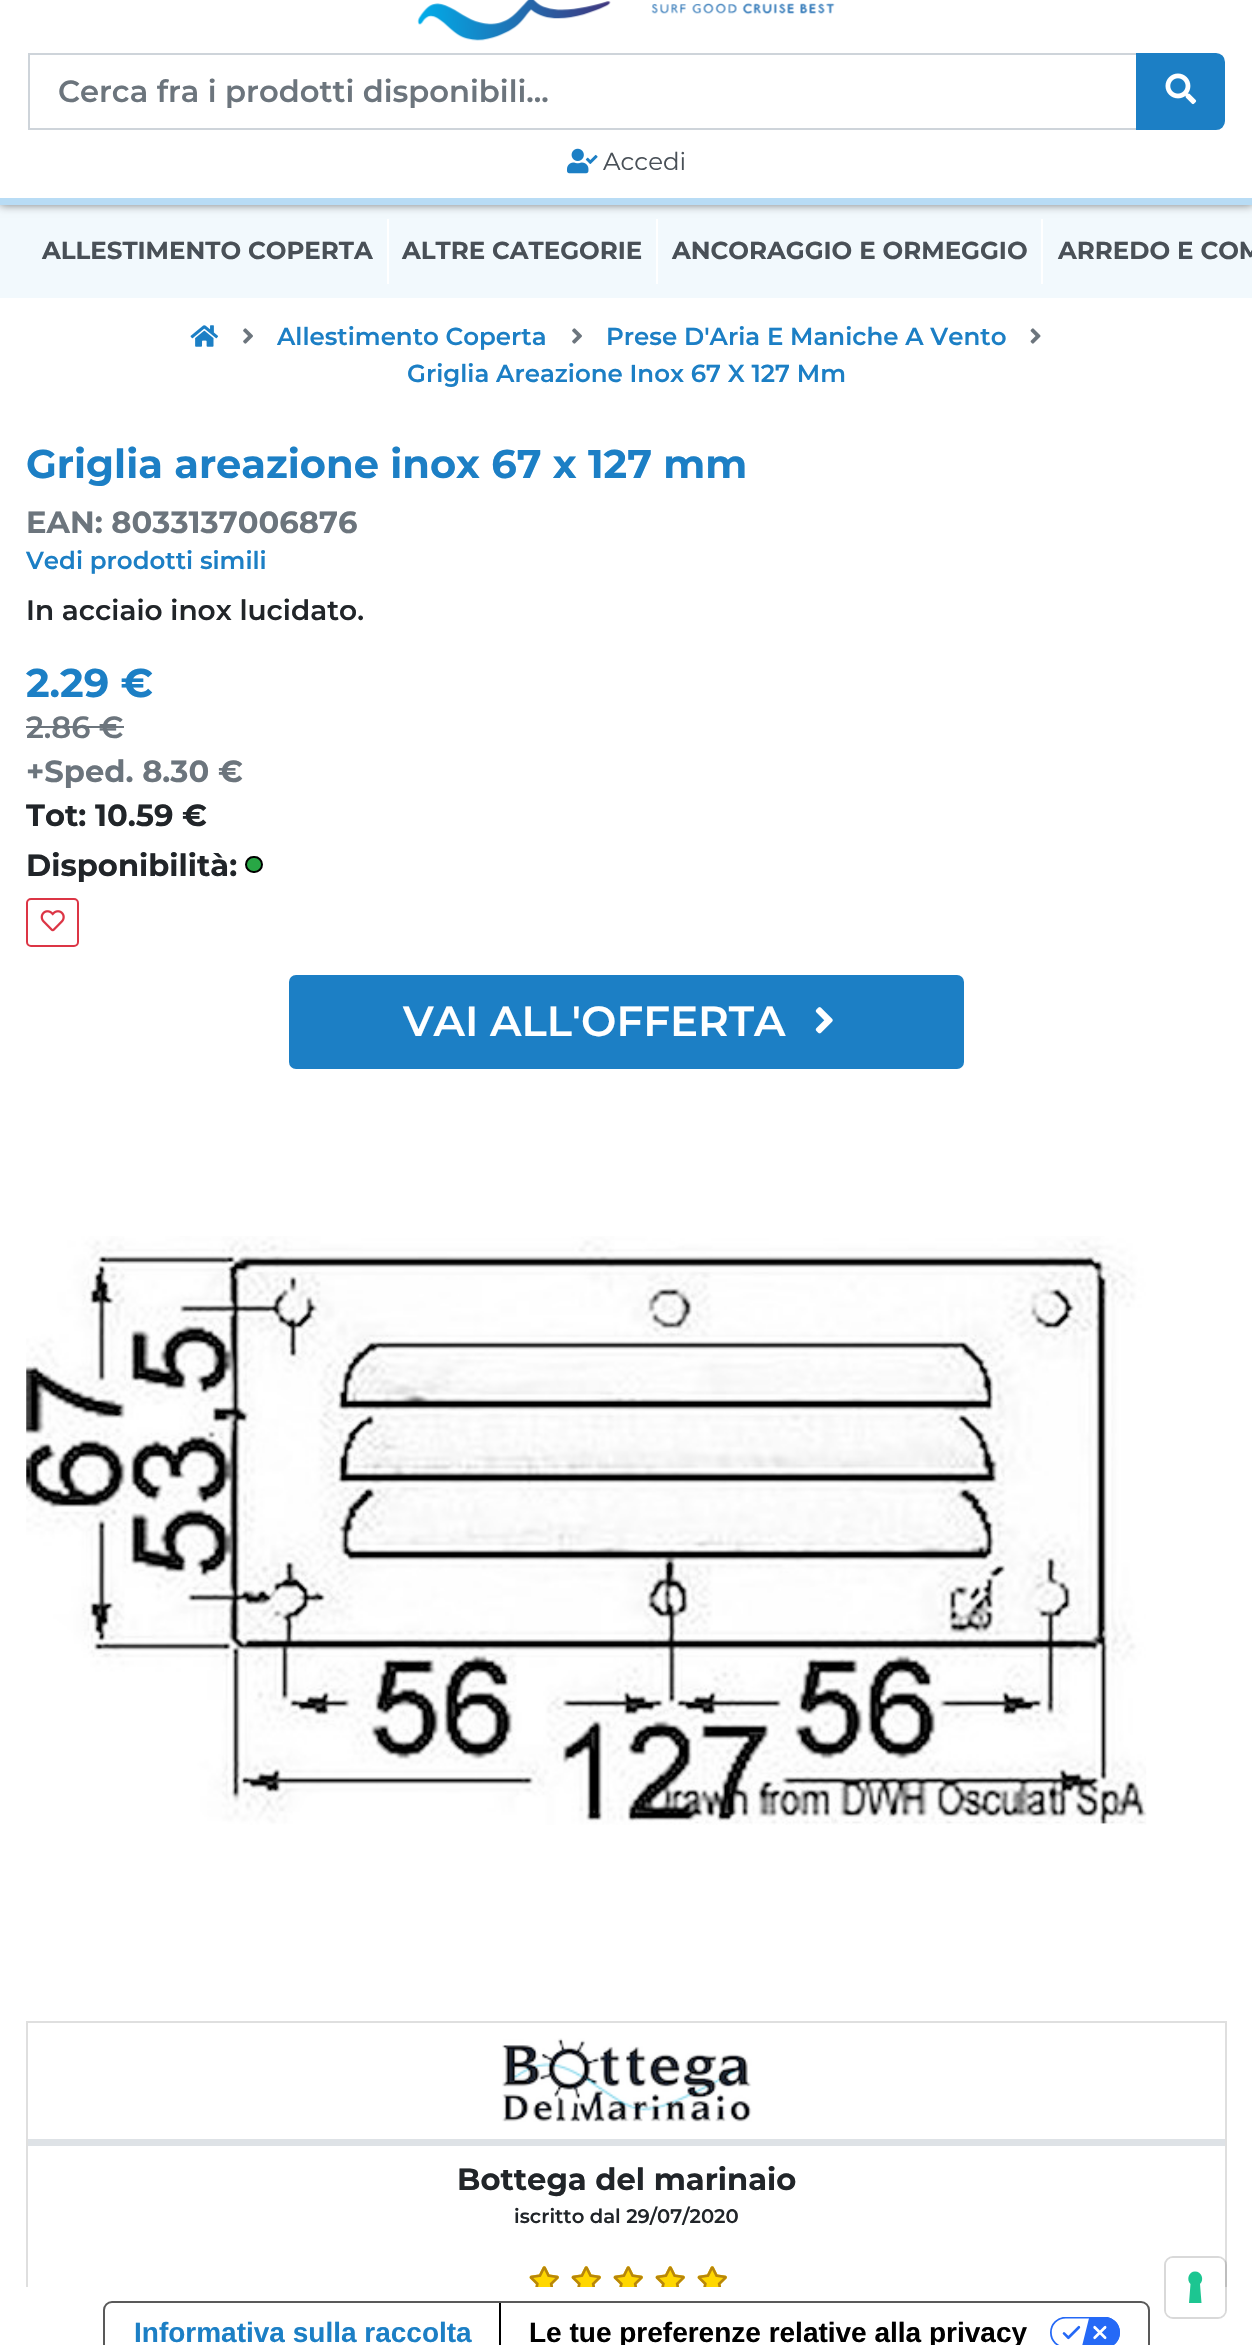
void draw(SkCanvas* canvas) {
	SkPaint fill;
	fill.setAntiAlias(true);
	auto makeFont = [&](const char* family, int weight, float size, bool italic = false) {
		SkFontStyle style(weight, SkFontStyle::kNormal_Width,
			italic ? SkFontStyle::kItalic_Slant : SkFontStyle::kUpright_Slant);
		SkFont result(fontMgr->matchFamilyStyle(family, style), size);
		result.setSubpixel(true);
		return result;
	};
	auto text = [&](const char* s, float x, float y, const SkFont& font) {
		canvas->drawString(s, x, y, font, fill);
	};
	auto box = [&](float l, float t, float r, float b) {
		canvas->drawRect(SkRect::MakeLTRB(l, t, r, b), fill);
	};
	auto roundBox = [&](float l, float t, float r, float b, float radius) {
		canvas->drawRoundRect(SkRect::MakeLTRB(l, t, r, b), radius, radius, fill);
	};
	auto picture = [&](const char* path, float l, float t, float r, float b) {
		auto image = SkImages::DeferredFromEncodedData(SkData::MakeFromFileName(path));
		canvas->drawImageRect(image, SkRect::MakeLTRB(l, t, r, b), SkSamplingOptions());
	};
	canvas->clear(0xFFFFFFFF);
	fill.setColor(0xFFF2F9FD);
	box(0, 205, 1252, 298);
	fill.setColor(0xFFFFFFFF);
	box(387, 219, 389, 284);
	box(656, 219, 658, 284);
	box(1041, 219, 1043, 284);
	fill.setColor(0x80000000);
	fill.setMaskFilter(SkMaskFilter::MakeBlur(kNormal_SkBlurStyle, 4.5f));
	canvas->drawRect(SkRect::MakeLTRB(0, -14, 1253, 205), fill);
	fill.setMaskFilter(nullptr);
	fill.setColor(0xFFFFFFFF);
	box(0, 0, 1252, 198);
	fill.setColor(0xFFB8DCF5);
	box(0, 198, 1252, 205);
	picture("image0.png", 417, 0, 835, 41);
	fill.setStyle(SkPaint::kStroke_Style);
	fill.setStrokeWidth(2);
	fill.setColor(0xFFCED4DA);
	canvas->drawRect(SkRect::MakeLTRB(29, 54, 1137, 129), fill);
	fill.setStyle(SkPaint::kFill_Style);
	fill.setColor(0xFF1C7FC5);
	canvas->drawPath(SkPathBuilder().moveTo(1137, 54).lineTo(1216, 54).cubicTo(1220.5f, 54, 1224, 57.5f, 1224, 62).lineTo(1224, 121).cubicTo(1224, 125.5f, 1220.5f, 129, 1216, 129).lineTo(1137, 129).close().detach(), fill);
	fill.setStyle(SkPaint::kStroke_Style);
	canvas->drawPath(SkPathBuilder().moveTo(1137, 54).lineTo(1216, 54).cubicTo(1220.5f, 54, 1224, 57.5f, 1224, 62).lineTo(1224, 121).cubicTo(1224, 125.5f, 1220.5f, 129, 1216, 129).lineTo(1137, 129).close().detach(), fill);
	picture("image1.png", 1165, 73, 1197, 105);
	picture("image2.png", 567, 148, 598, 174);
	picture("image3.png", 190, 325, 219, 347);
	picture("image4.png", 243, 328, 253, 344);
	picture("image4.png", 572, 328, 582, 344);
	picture("image5.png", 1030, 328, 1041, 344);
	fill.setStyle(SkPaint::kFill_Style);
	fill.setColor(0xFF6C757D);
	box(26, 726, 124, 728);
	fill.setColor(0xFF28A745);
	canvas->drawRoundRect(SkRect::MakeLTRB(246, 857, 262, 872), 7.5f, 7.5f, fill);
	fill.setStyle(SkPaint::kStroke_Style);
	fill.setColor(0xFF000000);
	canvas->drawRoundRect(SkRect::MakeLTRB(246, 857, 262, 872), 7.5f, 7.5f, fill);
	fill.setColor(0xFFDC3545);
	canvas->drawRoundRect(SkRect::MakeLTRB(27, 899, 78, 946), 4, 4, fill);
	picture("image6.png", 40, 910, 65, 932);
	fill.setStyle(SkPaint::kFill_Style);
	fill.setColor(0xFF1C7FC5);
	canvas->drawRoundRect(SkRect::MakeLTRB(290, 976, 963, 1068), 6, 6, fill);
	fill.setStyle(SkPaint::kStroke_Style);
	canvas->drawRoundRect(SkRect::MakeLTRB(290, 976, 963, 1068), 6, 6, fill);
	picture("image7.png", 815, 1007, 833, 1034);
	picture("image8.png", 26, 1236, 1147, 1825);
	fill.setColor(0xFF595959);
	canvas->drawRoundRect(SkRect::MakeLTRB(104, 2302, 1149, 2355), 8, 8, fill);
	fill.setStyle(SkPaint::kFill_Style);
	fill.setColor(0xFF000000);
	box(499, 2303, 501, 2345);
	picture("image12.png", 1050, 2317, 1120, 2345);
	canvas->save();
	canvas->clipRect(SkRect::MakeLTRB(0, 0, 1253, 2287));
	fill.setStyle(SkPaint::kStroke_Style);
	fill.setColor(0xFFDFDFDF);
	canvas->drawRect(SkRect::MakeLTRB(27, 2022, 1226, 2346), fill);
	canvas->restore();
	fill.setStyle(SkPaint::kFill_Style);
	fill.setColor(0xFFDEE2E6);
	box(28, 2139, 1225, 2146);
	picture("image9.png", 502, 2038, 752, 2122);
	picture("image10.png", 529, 2266, 559, 2287);
	picture("image11.png", 529, 2266, 559, 2287);
	picture("image10.png", 571, 2266, 601, 2287);
	picture("image11.png", 571, 2266, 601, 2287);
	picture("image10.png", 613, 2266, 643, 2287);
	picture("image11.png", 613, 2266, 643, 2287);
	picture("image10.png", 655, 2266, 685, 2287);
	picture("image11.png", 655, 2266, 685, 2287);
	picture("image10.png", 697, 2266, 727, 2287);
	picture("image11.png", 697, 2266, 727, 2287);
	fill.setStyle(SkPaint::kStroke_Style);
	fill.setColor(0x26000000);
	canvas->drawRoundRect(SkRect::MakeLTRB(1165, 2257, 1226, 2318), 8, 8, fill);
	fill.setStyle(SkPaint::kFill_Style);
	fill.setColor(0xFFFFFFFF);
	roundBox(1166, 2258, 1225, 2317, 7);
	fill.setColor(0xFF1CC691);
	canvas->drawPath(SkPathBuilder(SkPathFillType::kEvenOdd).moveTo(1195, 2271.5f).cubicTo(1201.5f, 2271.5f, 1204.5f, 2279.5f, 1200, 2284).lineTo(1201.5f, 2303).lineTo(1189, 2303).lineTo(1190.5f, 2284).cubicTo(1186, 2279.5f, 1189, 2271.5f, 1195, 2271.5f).close().detach(), fill);
	auto font1 = makeFont("Montserrat", 600, 30.6f);
	fill.setColor(0xFF6C757D);
	text("Cerca fra i prodotti disponibili...", 58, 102, font1);
	auto font2 = makeFont("Montserrat", 400, 24.5f);
	fill.setColor(0xFF495057);
	text("Accedi", 603, 170, font2);
	auto font3 = makeFont("Montserrat", 700, 24.5f);
	text("ALLESTIMENTO COPERTA", 42, 259, font3);
	text("ALTRE CATEGORIE", 402, 259, font3);
	text("ANCORAGGIO E ORMEGGIO", 672, 259, font3);
	text("ARREDO E COM", 1058, 259, font3);
	auto font4 = makeFont("Montserrat", 600, 24.5f);
	fill.setColor(0xFF1C7FC5);
	text("Allestimento Coperta", 277, 345, font4);
	text("Prese D'Aria E Maniche A Vento", 606, 345, font4);
	text("Griglia Areazione Inox 67 X 127 Mm", 407, 382, font4);
	auto font5 = makeFont("Montserrat", 700, 40);
	text("Griglia areazione inox 67 x 127 mm", 26, 478, font5);
	auto font6 = makeFont("Montserrat", 700, 30.6f);
	fill.setColor(0xFF6C757D);
	text("EAN: 8033137006876", 26, 533, font6);
	fill.setColor(0xFF1C7FC5);
	text("Vedi prodotti simili", 26, 569, font4);
	auto font7 = makeFont("Montserrat", 600, 28);
	fill.setColor(0xFF212529);
	text("In acciaio inox lucidato.", 26, 620, font7);
	fill.setColor(0xFF1C7FC5);
	text("2.29 €", 26, 697, font5);
	fill.setColor(0xFF6C757D);
	text("2.86 €", 26, 738, font1);
	text("+Sped. 8.30 €", 26, 782, font6);
	fill.setColor(0xFF212529);
	text("Tot: 10.59 €", 26, 826, font6);
	text("Disponibilità:", 26, 876, font6);
	auto font8 = makeFont("Montserrat", 600, 42);
	fill.setColor(0xFFFFFFFF);
	text("VAI ALL'OFFERTA", 403, 1036, font8);
	fill.setColor(0xFF212529);
	text("Bottega del marinaio", 457, 2190, font6);
	auto font9 = makeFont("Montserrat", 600, 19.6f);
	text("iscritto dal 29/07/2020", 514, 2223, font9);
	auto font10 = makeFont("Liberation Sans", 700, 28);
	fill.setColor(0xFF1C7FC5);
	text("Informativa sulla raccolta", 134, 2342, font10);
	fill.setColor(0xFF000000);
	text("Le tue preferenze relative alla privacy", 529, 2342, font10);
}
